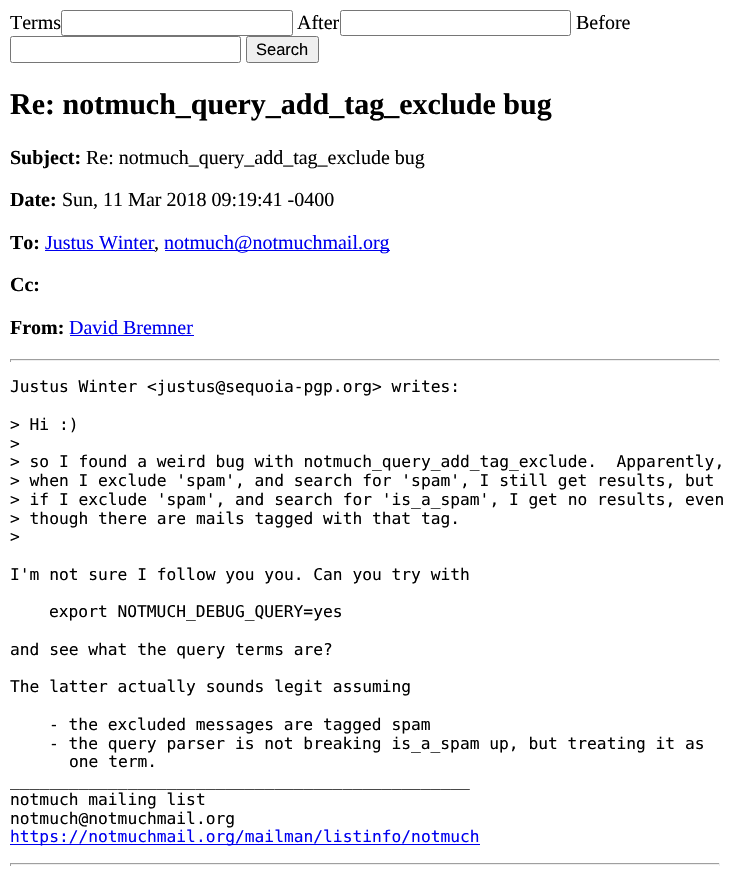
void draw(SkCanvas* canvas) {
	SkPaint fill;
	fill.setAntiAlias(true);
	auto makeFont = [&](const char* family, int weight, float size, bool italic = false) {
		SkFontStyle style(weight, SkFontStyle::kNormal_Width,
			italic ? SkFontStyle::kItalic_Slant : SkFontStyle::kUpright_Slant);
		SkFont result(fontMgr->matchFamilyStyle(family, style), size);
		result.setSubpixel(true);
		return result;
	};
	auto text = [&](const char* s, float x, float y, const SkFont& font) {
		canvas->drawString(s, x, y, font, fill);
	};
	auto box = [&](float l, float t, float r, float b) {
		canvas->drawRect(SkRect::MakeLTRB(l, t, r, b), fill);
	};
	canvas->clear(0xFFFFFFFF);
	fill.setStyle(SkPaint::kStroke_Style);
	fill.setStrokeWidth(1);
	fill.setColor(0xFF767676);
	canvas->drawRoundRect(SkRect::MakeLTRB(61.5f, 10.5f, 292.5f, 35.5f), 2, 2, fill);
	canvas->drawRoundRect(SkRect::MakeLTRB(340.5f, 10.5f, 570.5f, 35.5f), 2, 2, fill);
	canvas->drawRoundRect(SkRect::MakeLTRB(10.5f, 36.5f, 240.5f, 62.5f), 2, 2, fill);
	fill.setStyle(SkPaint::kFill_Style);
	fill.setColor(0xFFEFEFEF);
	canvas->drawRoundRect(SkRect::MakeLTRB(246.5f, 36.5f, 318.5f, 62.5f), 2, 2, fill);
	fill.setStyle(SkPaint::kStroke_Style);
	fill.setColor(0xFF767676);
	canvas->drawRoundRect(SkRect::MakeLTRB(246.5f, 36.5f, 318.5f, 62.5f), 2, 2, fill);
	fill.setStyle(SkPaint::kFill_Style);
	fill.setColor(0xFF0000EE);
	box(45, 250, 155, 251);
	box(165, 250, 390, 251);
	box(70, 335, 194, 336);
	fill.setColor(0xFF9F9F9F);
	box(10, 359, 720, 360);
	fill.setColor(0xFFEEEEEE);
	box(719, 359, 720, 362);
	box(10, 360, 720, 361);
	fill.setColor(0xFF9F9F9F);
	box(10, 359, 11, 362);
	fill.setColor(0xFF0000EE);
	box(10, 844, 480, 845);
	fill.setColor(0xFF9F9F9F);
	box(10, 863, 720, 864);
	fill.setColor(0xFFEEEEEE);
	box(719, 863, 720, 866);
	box(10, 864, 720, 865);
	fill.setColor(0xFF9F9F9F);
	box(10, 863, 11, 866);
	auto font1 = makeFont("Liberation Serif", 400, 20);
	fill.setColor(0xFF000000);
	text("Terms", 10, 29, font1);
	text("After", 297, 29, font1);
	text("Before", 576, 29, font1);
	auto font2 = makeFont("Liberation Sans", 400, 16.5f);
	text("Search", 256, 55, font2);
	auto font3 = makeFont("Liberation Serif", 700, 30);
	text("Re: notmuch_query_add_tag_exclude bug", 10, 114, font3);
	auto font4 = makeFont("Liberation Serif", 700, 20);
	text("Subject:", 10, 164, font4);
	text("Re: notmuch_query_add_tag_exclude bug", 86, 164, font1);
	text("Date:", 10, 206, font4);
	text("Sun, 11 Mar 2018 09:19:41 -0400", 62, 206, font1);
	text("To:", 10, 249, font4);
	fill.setColor(0xFF0000EE);
	text("Justus Winter", 45, 249, font1);
	fill.setColor(0xFF000000);
	text(",", 154, 249, font1);
	fill.setColor(0xFF0000EE);
	text("notmuch@notmuchmail.org", 164, 249, font1);
	fill.setColor(0xFF000000);
	text("Cc:", 10, 291, font4);
	text("From:", 10, 334, font4);
	fill.setColor(0xFF0000EE);
	text("David Bremner", 69, 334, font1);
	auto font5 = makeFont("DejaVu Sans Mono", 400, 16.25f);
	fill.setColor(0xFF000000);
	text("Justus Winter <justus@sequoia-pgp.org> writes:", 10, 392, font5);
	text("> Hi :)", 10, 430, font5);
	text(">", 10, 449, font5);
	text("> so I found a weird bug with notmuch_query_add_tag_exclude.  Apparently,", 10, 467, font5);
	text("> when I exclude 'spam', and search for 'spam', I still get results, but", 10, 486, font5);
	text("> if I exclude 'spam', and search for 'is_a_spam', I get no results, even", 10, 505, font5);
	text("> though there are mails tagged with that tag.", 10, 524, font5);
	text(">", 10, 542, font5);
	text("I'm not sure I follow you you. Can you try with", 10, 580, font5);
	text("export NOTMUCH_DEBUG_QUERY=yes", 49, 617, font5);
	text("and see what the query terms are?", 10, 655, font5);
	text("The latter actually sounds legit assuming", 10, 692, font5);
	text("- the excluded messages are tagged spam", 49, 730, font5);
	text("- the query parser is not breaking is_a_spam up, but treating it as", 49, 749, font5);
	text("one term.", 69, 767, font5);
	text("_______________________________________________", 10, 786, font5);
	text("notmuch mailing list", 10, 805, font5);
	text("notmuch@notmuchmail.org", 10, 824, font5);
	fill.setColor(0xFF0000EE);
	text("https://notmuchmail.org/mailman/listinfo/notmuch", 10, 842, font5);
}
